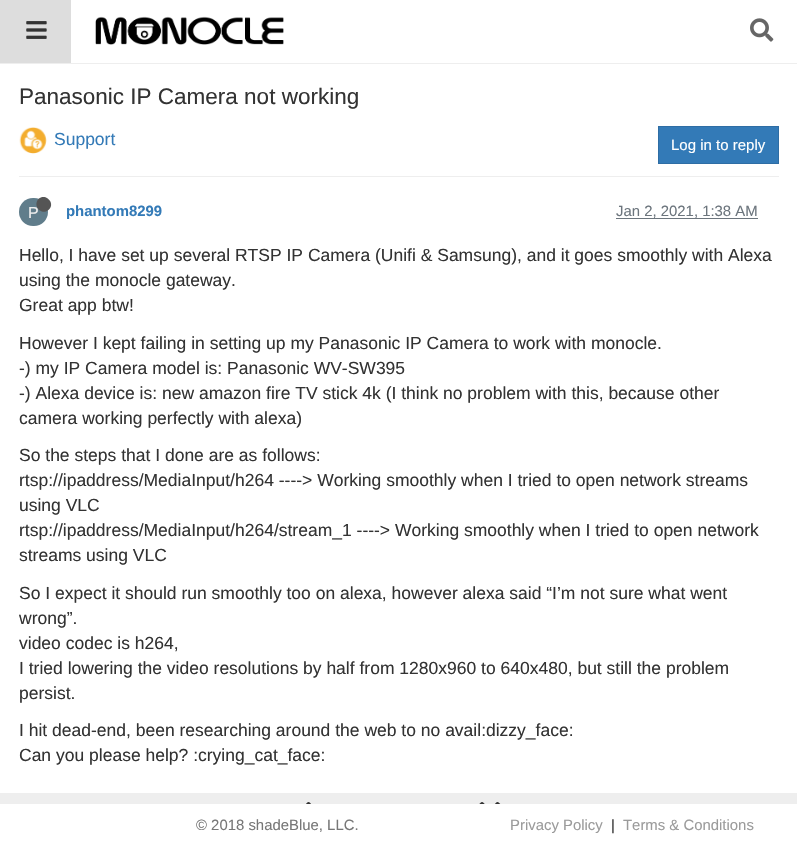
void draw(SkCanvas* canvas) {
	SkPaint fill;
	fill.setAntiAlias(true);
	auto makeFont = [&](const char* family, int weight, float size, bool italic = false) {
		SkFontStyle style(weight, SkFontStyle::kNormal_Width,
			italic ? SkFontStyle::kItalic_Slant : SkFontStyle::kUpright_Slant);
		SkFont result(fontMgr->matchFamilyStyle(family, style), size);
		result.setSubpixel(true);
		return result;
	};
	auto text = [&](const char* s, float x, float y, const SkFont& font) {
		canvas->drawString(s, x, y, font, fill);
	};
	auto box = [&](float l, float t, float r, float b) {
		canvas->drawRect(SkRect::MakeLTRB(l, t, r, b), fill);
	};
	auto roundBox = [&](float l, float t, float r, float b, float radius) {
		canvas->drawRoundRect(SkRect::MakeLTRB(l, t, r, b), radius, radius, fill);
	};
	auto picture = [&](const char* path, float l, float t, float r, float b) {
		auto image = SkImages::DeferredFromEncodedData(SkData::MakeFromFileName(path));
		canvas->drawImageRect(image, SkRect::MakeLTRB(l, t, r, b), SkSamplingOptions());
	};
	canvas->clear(0xFFFFFFFF);
	fill.setColor(0xFFEEEEEE);
	box(0, 63, 797, 64);
	fill.setColor(0xFFDDDDDD);
	box(0, 0, 71, 63);
	picture("image0.png", 26, 21, 47, 39);
	picture("image1.png", 95, 16, 284, 45);
	picture("image2.png", 750, 18, 774, 42);
	fill.setColor(0xFFEEEEEE);
	box(19, 176, 779, 177);
	picture("image3.png", 19, 127, 47, 154);
	fill.setColor(0xFF337AB7);
	canvas->drawRect(SkRect::MakeLTRB(658.5f, 126.5f, 778.5f, 163.5f), fill);
	fill.setStyle(SkPaint::kStroke_Style);
	fill.setStrokeWidth(1);
	fill.setColor(0xFF2E6DA4);
	canvas->drawRect(SkRect::MakeLTRB(658.5f, 126.5f, 778.5f, 163.5f), fill);
	fill.setStyle(SkPaint::kFill_Style);
	fill.setColor(0xFF607D8B);
	roundBox(19, 198, 48, 226, 14);
	fill.setColor(0xFF6C757D);
	box(616, 218, 758, 219);
	fill.setColor(0xFFEEEEEE);
	box(0, 793, 797, 804);
	picture("image4.png", 306, 802, 311, 804);
	picture("image5.png", 479, 802, 501, 804);
	auto font1 = makeFont("Liberation Sans", 400, 22.5f);
	fill.setColor(0xFF333333);
	text("Panasonic IP Camera not working", 19, 104, font1);
	auto font2 = makeFont("Liberation Sans", 400, 17.5f);
	fill.setColor(0xFF337AB7);
	text("Support", 54, 145, font2);
	auto font3 = makeFont("Liberation Sans", 400, 15);
	fill.setColor(0xFFFFFFFF);
	text("Log in to reply", 671, 150, font3);
	auto font4 = makeFont("Liberation Sans", 400, 16);
	fill.setColor(0xFFEEEEEE);
	text("P", 28, 218, font4);
	fill.setColor(0xFF555555);
	canvas->drawPath(SkPathBuilder().moveTo(38.5f, 199).cubicTo(45.5f, 192.5f, 55.5f, 203, 49, 209.5f).cubicTo(42, 216.5f, 32, 206, 38.5f, 199).close().detach(), fill);
	auto font5 = makeFont("Liberation Sans", 700, 14.9f);
	fill.setColor(0xFF337AB7);
	text("phantom8299", 66, 216, font5);
	auto font6 = makeFont("Liberation Sans", 400, 14.9f);
	fill.setColor(0xFF6C757D);
	text("Jan 2, 2021, 1:38 AM", 616, 216, font6);
	fill.setColor(0xFF333333);
	text("Hello, I have set up several RTSP IP Camera (Unifi & Samsung), and it goes smoothly with Alexa", 19, 261, font2);
	text("using the monocle gateway.", 19, 286, font2);
	text("Great app btw!", 19, 311, font2);
	text("However I kept failing in setting up my Panasonic IP Camera to work with monocle.", 19, 349, font2);
	text("-) my IP Camera model is: Panasonic WV-SW395", 19, 374, font2);
	text("-) Alexa device is: new amazon fire TV stick 4k (I think no problem with this, because other", 19, 399, font2);
	text("camera working perfectly with alexa)", 19, 424, font2);
	text("So the steps that I done are as follows:", 19, 461, font2);
	text("rtsp://ipaddress/MediaInput/h264 ----> Working smoothly when I tried to open network streams", 19, 486, font2);
	text("using VLC", 19, 511, font2);
	text("rtsp://ipaddress/MediaInput/h264/stream_1 ----> Working smoothly when I tried to open network", 19, 536, font2);
	text("streams using VLC", 19, 561, font2);
	text("So I expect it should run smoothly too on alexa, however alexa said “I’m not sure what went", 19, 599, font2);
	text("wrong”.", 19, 624, font2);
	text("video codec is h264,", 19, 649, font2);
	text("I tried lowering the video resolutions by half from 1280x960 to 640x480, but still the problem", 19, 674, font2);
	text("persist.", 19, 699, font2);
	text("I hit dead-end, been researching around the web to no avail:dizzy_face:", 19, 736, font2);
	text("Can you please help? :crying_cat_face:", 19, 761, font2);
	fill.setColor(0xFF777777);
	text("© 2018 shadeBlue, LLC.", 196, 830, font6);
	fill.setColor(0xFF9B9B9B);
	text("Privacy Policy", 510, 830, font6);
	fill.setColor(0xFF333333);
	text("|", 611, 830, font6);
	fill.setColor(0xFF9B9B9B);
	text("Terms & Conditions", 623, 830, font6);
}
